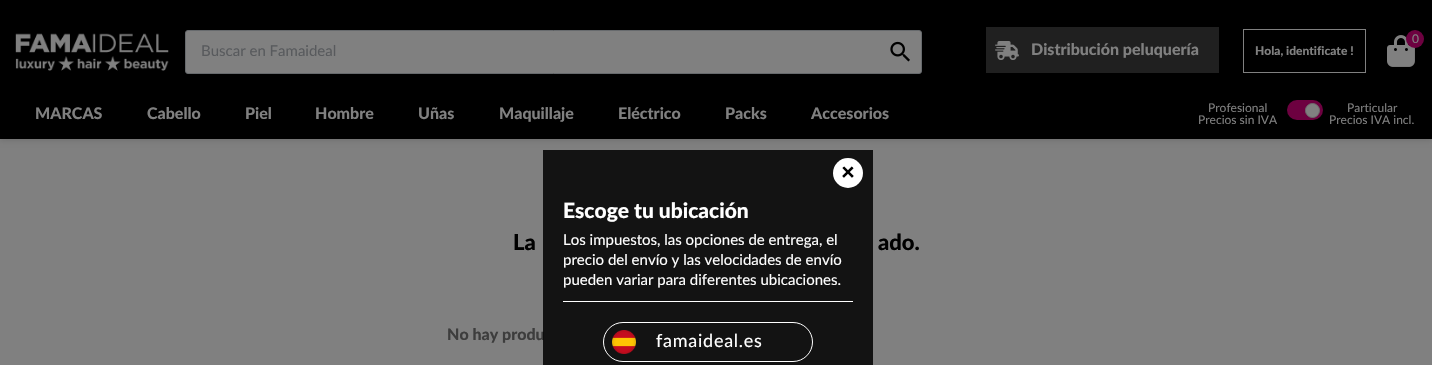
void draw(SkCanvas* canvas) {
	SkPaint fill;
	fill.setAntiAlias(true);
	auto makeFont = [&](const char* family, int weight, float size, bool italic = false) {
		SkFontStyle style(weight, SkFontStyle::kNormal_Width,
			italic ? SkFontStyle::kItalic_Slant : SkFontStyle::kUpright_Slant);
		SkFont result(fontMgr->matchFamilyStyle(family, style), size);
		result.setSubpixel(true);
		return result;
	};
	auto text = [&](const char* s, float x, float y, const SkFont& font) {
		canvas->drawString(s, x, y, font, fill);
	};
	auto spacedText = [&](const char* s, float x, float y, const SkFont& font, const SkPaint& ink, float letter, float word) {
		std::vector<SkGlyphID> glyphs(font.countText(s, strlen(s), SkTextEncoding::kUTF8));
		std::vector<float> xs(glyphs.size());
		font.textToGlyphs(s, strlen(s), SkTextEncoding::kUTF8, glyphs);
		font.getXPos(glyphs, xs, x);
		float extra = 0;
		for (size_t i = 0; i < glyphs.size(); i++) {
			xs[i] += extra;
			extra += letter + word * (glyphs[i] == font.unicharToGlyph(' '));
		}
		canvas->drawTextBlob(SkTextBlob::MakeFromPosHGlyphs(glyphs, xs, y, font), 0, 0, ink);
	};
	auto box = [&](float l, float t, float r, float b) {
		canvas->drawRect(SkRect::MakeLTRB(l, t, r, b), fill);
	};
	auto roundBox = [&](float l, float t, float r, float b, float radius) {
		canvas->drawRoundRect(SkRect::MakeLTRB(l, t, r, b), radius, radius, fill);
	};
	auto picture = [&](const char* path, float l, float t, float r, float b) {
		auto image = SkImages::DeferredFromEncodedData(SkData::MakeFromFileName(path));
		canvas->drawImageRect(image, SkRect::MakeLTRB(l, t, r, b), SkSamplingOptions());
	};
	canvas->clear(0xFF808080);
	fill.setColor(0x1C000000);
	fill.setMaskFilter(SkMaskFilter::MakeBlur(kNormal_SkBlurStyle, 2.5f));
	canvas->drawRect(SkRect::MakeLTRB(0, 2, 1432, 141), fill);
	fill.setMaskFilter(nullptr);
	fill.setColor(0xFF000000);
	box(0, 0, 1432, 139);
	picture("image0.png", 15, 33, 169, 71);
	fill.setColor(0xFF808080);
	canvas->drawRoundRect(SkRect::MakeLTRB(185.5f, 30.5f, 921.5f, 73.5f), 2.5f, 2.5f, fill);
	fill.setStyle(SkPaint::kStroke_Style);
	fill.setStrokeWidth(1);
	fill.setColor(0xFF676A6D);
	canvas->drawRoundRect(SkRect::MakeLTRB(185.5f, 30.5f, 921.5f, 73.5f), 2.5f, 2.5f, fill);
	picture("image1.png", 890, 41, 910, 62);
	picture("image2.png", 1387, 35, 1415, 67);
	fill.setStyle(SkPaint::kFill_Style);
	fill.setColor(0xFF6D0140);
	canvas->drawCircle(1415, 39, 9, fill);
	fill.setColor(0xFF202020);
	box(986, 27, 1219, 73);
	picture("image3.png", 995, 41, 1019, 60);
	fill.setStyle(SkPaint::kStroke_Style);
	fill.setColor(0xFF808080);
	canvas->drawRect(SkRect::MakeLTRB(1243.5f, 29.5f, 1365.5f, 72.5f), fill);
	fill.setStyle(SkPaint::kFill_Style);
	fill.setColor(0xFF6D0140);
	roundBox(1287, 100, 1323, 120, 10);
	fill.setColor(0xFF808080);
	canvas->drawCircle(1312.5f, 110.5f, 7, fill);
	fill.setStyle(SkPaint::kStroke_Style);
	fill.setColor(0xFF6C6D6D);
	canvas->drawCircle(1312.5f, 110.5f, 7, fill);
	auto font1 = makeFont("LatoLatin", 400, 15);
	fill.setStyle(SkPaint::kFill_Style);
	fill.setColor(0xFF585A5D);
	text("Buscar en Famaideal", 201, 56, font1);
	auto font2 = makeFont("LatoLatin", 400, 12);
	fill.setColor(0xFF808080);
	text("0", 1412, 43, font2);
	auto font3 = makeFont("LatoLatin", 900, 16);
	text("Distribución peluquería", 1031, 55, font3);
	auto font4 = makeFont("LatoLatin", 900, 12);
	text("Hola, identificate !", 1255, 55, font4);
	text("MARCAS", 35, 119, font3);
	text("Cabello", 147, 119, font3);
	text("Piel", 245, 119, font3);
	text("Hombre", 315, 119, font3);
	text("Uñas", 418, 119, font3);
	text("Maquillaje", 499, 119, font3);
	text("Eléctrico", 618, 119, font3);
	text("Packs", 725, 119, font3);
	text("Accesorios", 811, 119, font3);
	text("Profesional", 1208, 112, font2);
	text("Precios sin IVA", 1198, 124, font2);
	text("Particular", 1347, 112, font2);
	text("Precios IVA incl.", 1329, 124, font2);
	auto font5 = makeFont("LatoLatin", 900, 22);
	fill.setColor(0xFF000000);
	text("La", 513, 250, font5);
	text("ado.", 878, 250, font5);
	fill.setColor(0xFF3D3D3D);
	text("No hay produ", 447, 340, font3);
	fill.setColor(0xD9000000);
	box(543, 150, 873, 365);
	fill.setColor(0xFFFFFFFF);
	canvas->drawCircle(848, 173, 15, fill);
	auto font6 = makeFont("LatoLatin", 900, 24);
	fill.setColor(0xFF000000);
	text("×", 841, 180, font6);
	auto font7 = makeFont("LatoLatin", 900, 21);
	fill.setColor(0xFFFFFFFF);
	text("Escoge tu ubicación", 563, 218, font7);
	box(563, 301, 853, 302);
	text("Los impuestos, las opciones de entrega, el", 563, 245, font1);
	text("precio del envío y las velocidades de envío", 563, 265, font1);
	text("pueden variar para diferentes ubicaciones.", 563, 285, font1);
	fill.setStyle(SkPaint::kStroke_Style);
	canvas->drawRoundRect(SkRect::MakeLTRB(603.5f, 322.5f, 812.5f, 361.5f), 19.5f, 19.5f, fill);
	picture("image4.png", 612, 330, 636, 354);
	auto font8 = makeFont("LatoLatin", 400, 18);
	fill.setStyle(SkPaint::kFill_Style);
	spacedText("famaideal.es", 656, 347, font8, fill, 0.75f, 0);
}
